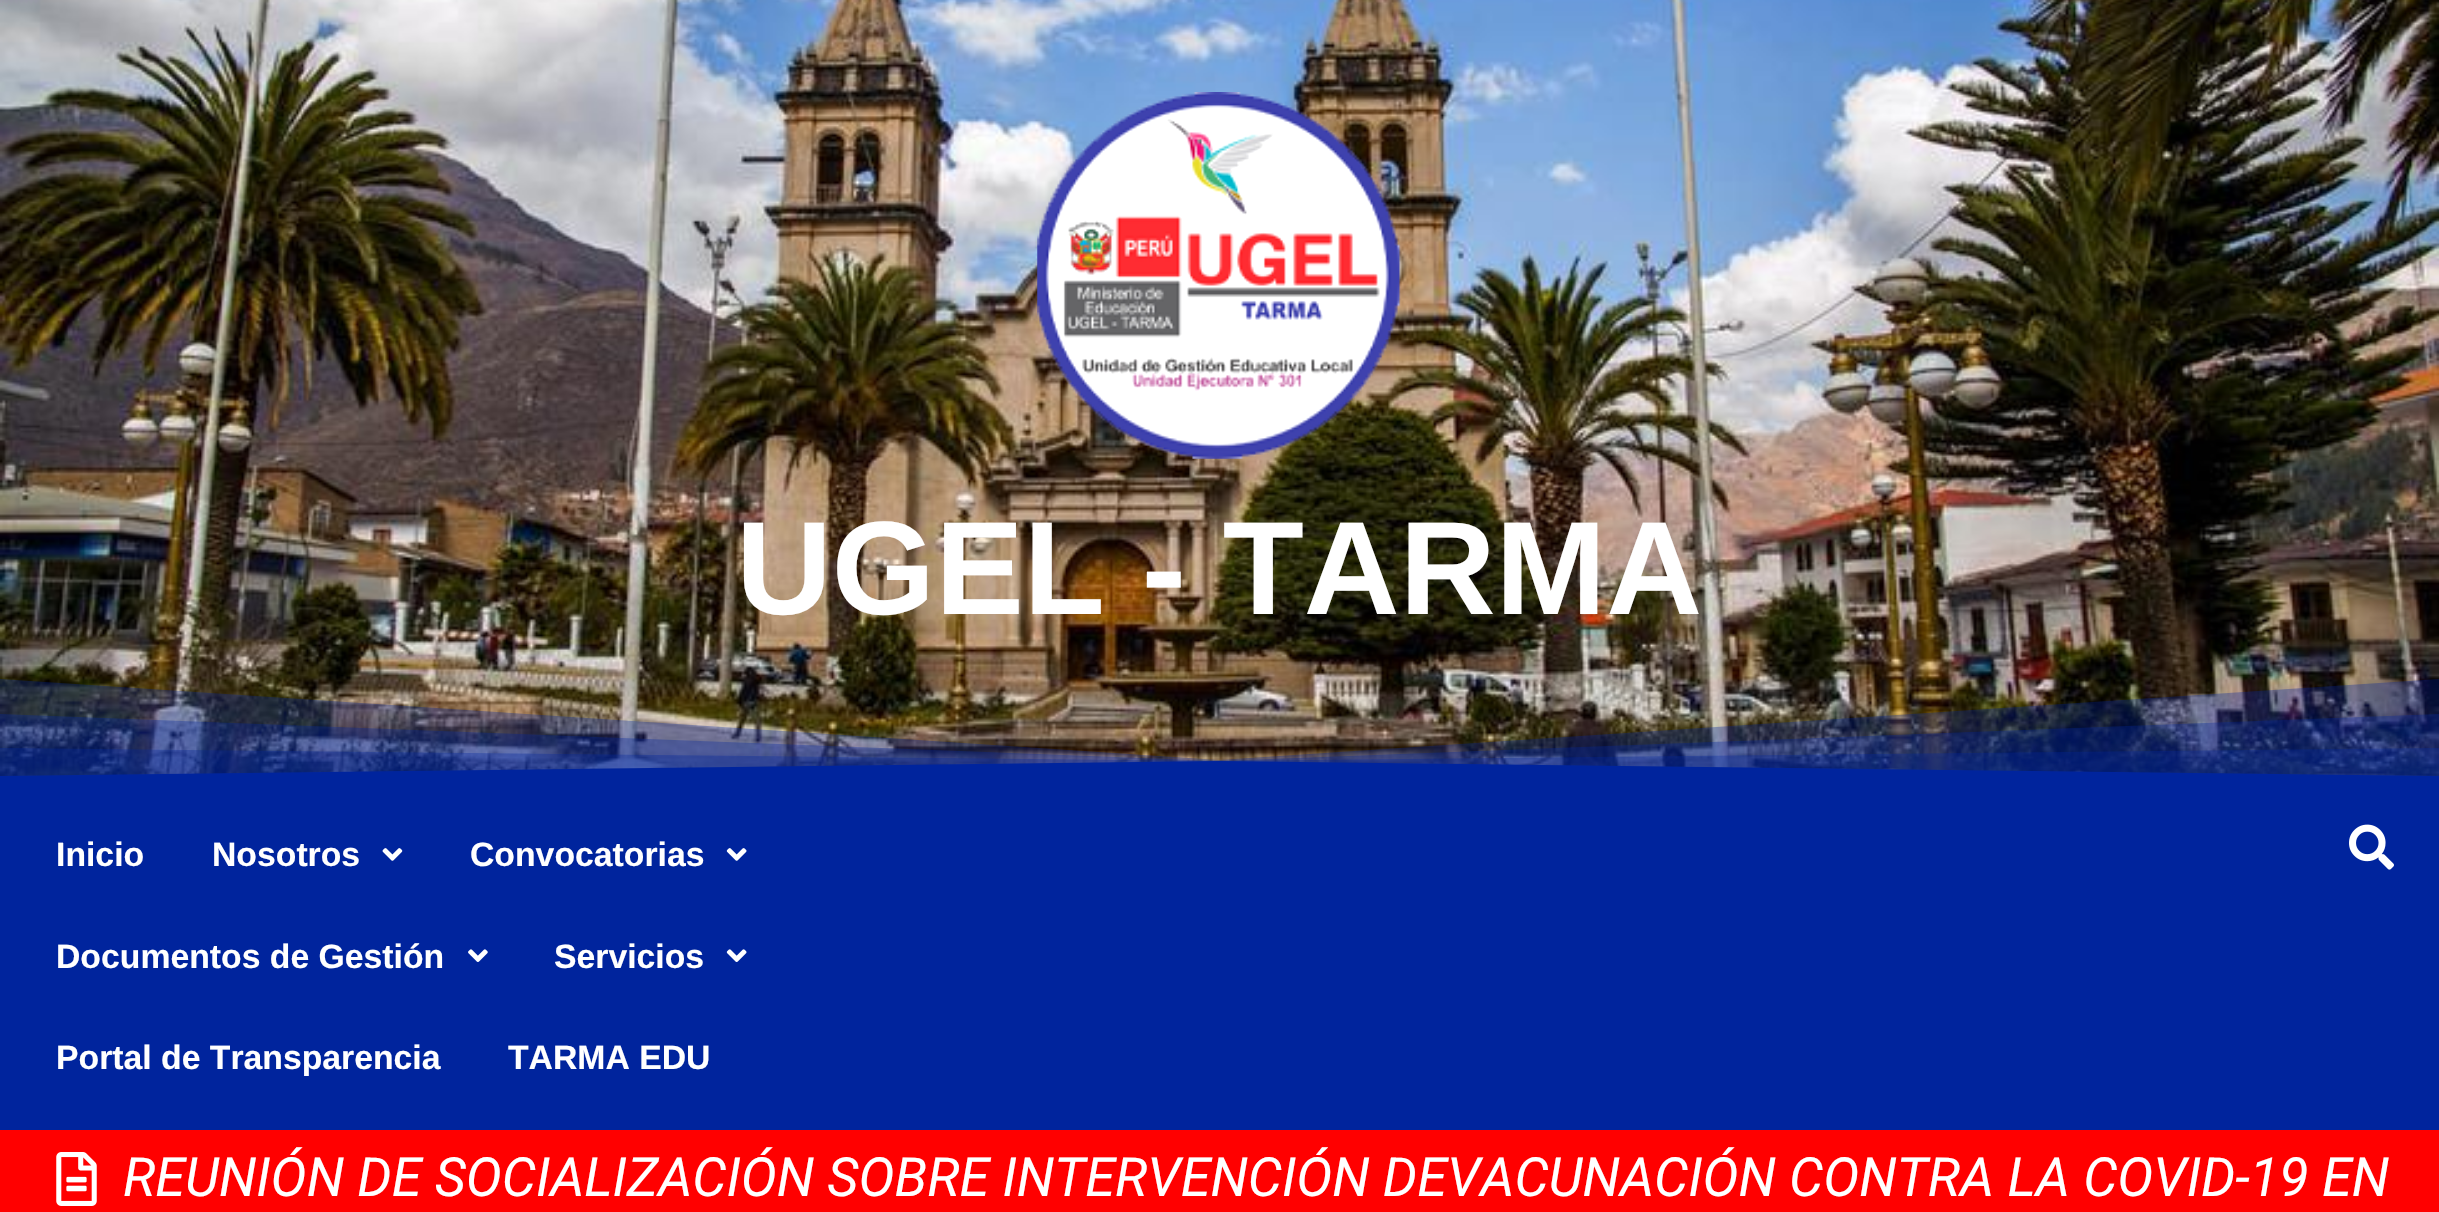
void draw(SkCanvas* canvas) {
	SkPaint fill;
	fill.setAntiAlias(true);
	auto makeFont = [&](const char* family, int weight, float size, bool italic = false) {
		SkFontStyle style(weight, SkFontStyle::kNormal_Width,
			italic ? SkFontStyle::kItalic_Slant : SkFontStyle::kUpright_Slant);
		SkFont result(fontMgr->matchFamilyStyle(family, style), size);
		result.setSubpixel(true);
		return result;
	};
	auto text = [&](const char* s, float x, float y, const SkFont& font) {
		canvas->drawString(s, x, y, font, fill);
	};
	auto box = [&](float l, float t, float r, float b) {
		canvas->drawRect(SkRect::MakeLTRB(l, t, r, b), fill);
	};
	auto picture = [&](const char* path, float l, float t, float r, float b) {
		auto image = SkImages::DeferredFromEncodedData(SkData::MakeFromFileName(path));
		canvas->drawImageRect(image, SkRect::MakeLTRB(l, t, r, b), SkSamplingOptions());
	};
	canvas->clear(0xFFFFFFFF);
	picture("image0.png", 0, 0, 2439, 776);
	picture("image1.png", 1037, 92, 1401, 459);
	fill.setColor(0x5400249D);
	canvas->drawPath(SkPathBuilder().moveTo(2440, 783).lineTo(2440, 679).lineTo(1219, 760).lineTo(-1, 679).lineTo(-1, 783).close().detach(), fill);
	canvas->drawPath(SkPathBuilder().moveTo(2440, 783).lineTo(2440, 714).lineTo(1219, 761).lineTo(-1, 714).lineTo(-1, 783).close().detach(), fill);
	canvas->drawPath(SkPathBuilder().moveTo(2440, 783).lineTo(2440, 748).lineTo(1219, 761).lineTo(-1, 748).lineTo(-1, 783).close().detach(), fill);
	fill.setColor(0xFF00249D);
	canvas->drawPath(SkPathBuilder().moveTo(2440, 783).lineTo(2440, 776).lineTo(1219, 761).lineTo(-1, 776).lineTo(-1, 783).close().detach(), fill);
	box(0, 783, 2439, 1130);
	picture("image2.png", 382, 848, 403, 861);
	picture("image3.png", 726, 848, 747, 861);
	picture("image4.png", 468, 949, 488, 962);
	picture("image5.png", 726, 949, 747, 962);
	picture("image6.png", 2349, 824, 2394, 870);
	fill.setColor(0xFFFF0000);
	box(0, 1130, 2439, 1212);
	picture("image7.png", 56, 1152, 97, 1206);
	auto font1 = makeFont("Liberation Sans", 700, 132.75f);
	fill.setColor(0xFFFFFFFF);
	text("UGEL - TARMA", 736, 614, font1);
	auto font2 = makeFont("Liberation Sans", 700, 33.75f);
	text("Inicio", 56, 866, font2);
	text("Nosotros", 212, 866, font2);
	text("Convocatorias", 470, 866, font2);
	text("Documentos de Gestión", 56, 968, font2);
	text("Servicios", 554, 968, font2);
	text("Portal de Transparencia", 56, 1069, font2);
	text("TARMA EDU", 508, 1069, font2);
	auto font3 = makeFont("Roboto", 400, 54, true);
	text("REUNIÓN DE SOCIALIZACIÓN SOBRE INTERVENCIÓN DEVACUNACIÓN CONTRA LA COVID-19 EN", 123, 1196, font3);
}
